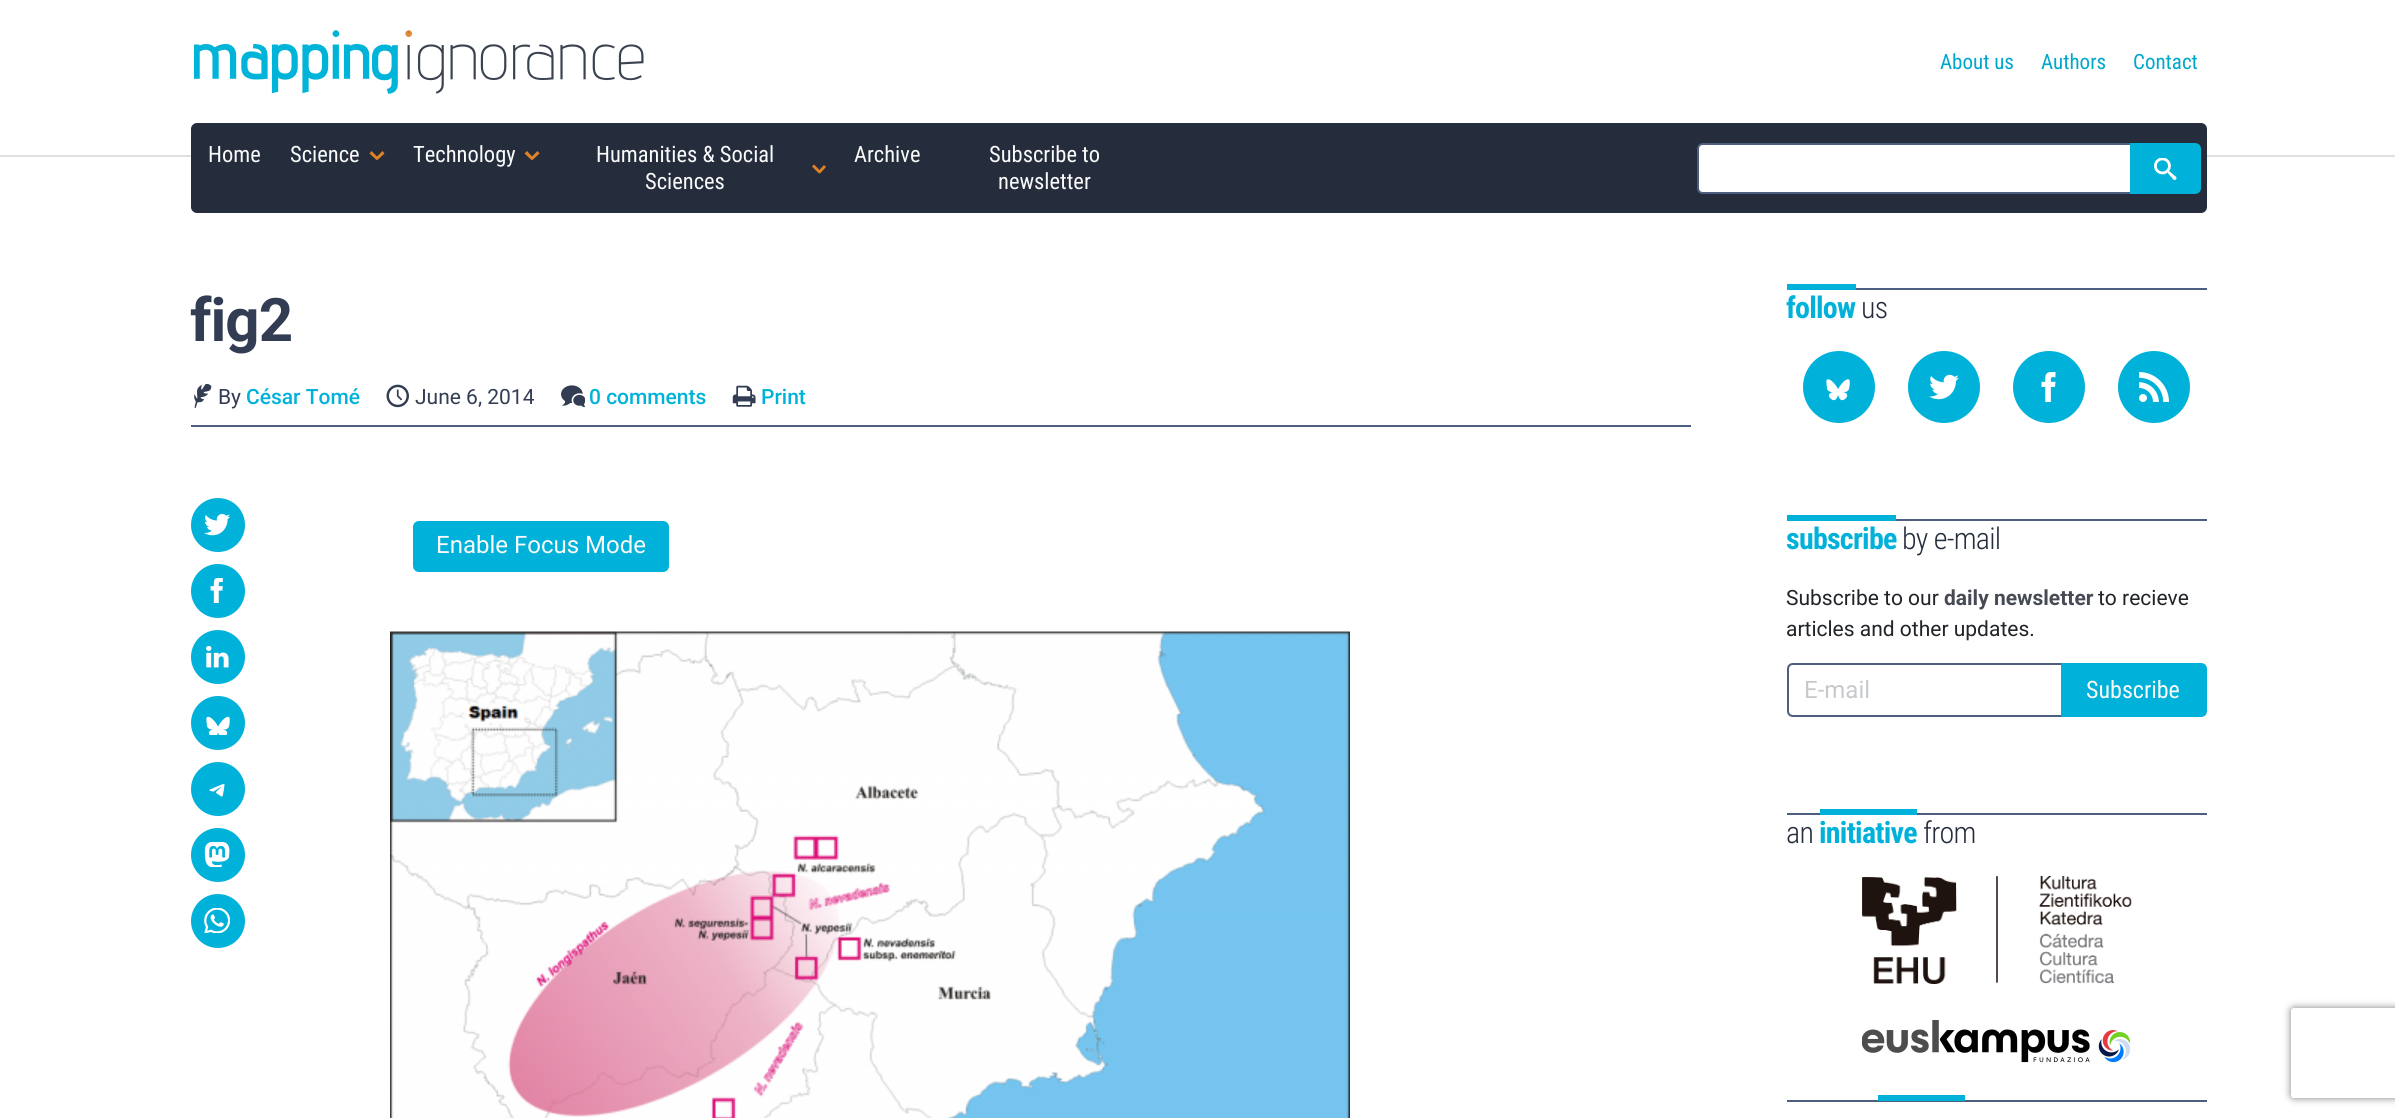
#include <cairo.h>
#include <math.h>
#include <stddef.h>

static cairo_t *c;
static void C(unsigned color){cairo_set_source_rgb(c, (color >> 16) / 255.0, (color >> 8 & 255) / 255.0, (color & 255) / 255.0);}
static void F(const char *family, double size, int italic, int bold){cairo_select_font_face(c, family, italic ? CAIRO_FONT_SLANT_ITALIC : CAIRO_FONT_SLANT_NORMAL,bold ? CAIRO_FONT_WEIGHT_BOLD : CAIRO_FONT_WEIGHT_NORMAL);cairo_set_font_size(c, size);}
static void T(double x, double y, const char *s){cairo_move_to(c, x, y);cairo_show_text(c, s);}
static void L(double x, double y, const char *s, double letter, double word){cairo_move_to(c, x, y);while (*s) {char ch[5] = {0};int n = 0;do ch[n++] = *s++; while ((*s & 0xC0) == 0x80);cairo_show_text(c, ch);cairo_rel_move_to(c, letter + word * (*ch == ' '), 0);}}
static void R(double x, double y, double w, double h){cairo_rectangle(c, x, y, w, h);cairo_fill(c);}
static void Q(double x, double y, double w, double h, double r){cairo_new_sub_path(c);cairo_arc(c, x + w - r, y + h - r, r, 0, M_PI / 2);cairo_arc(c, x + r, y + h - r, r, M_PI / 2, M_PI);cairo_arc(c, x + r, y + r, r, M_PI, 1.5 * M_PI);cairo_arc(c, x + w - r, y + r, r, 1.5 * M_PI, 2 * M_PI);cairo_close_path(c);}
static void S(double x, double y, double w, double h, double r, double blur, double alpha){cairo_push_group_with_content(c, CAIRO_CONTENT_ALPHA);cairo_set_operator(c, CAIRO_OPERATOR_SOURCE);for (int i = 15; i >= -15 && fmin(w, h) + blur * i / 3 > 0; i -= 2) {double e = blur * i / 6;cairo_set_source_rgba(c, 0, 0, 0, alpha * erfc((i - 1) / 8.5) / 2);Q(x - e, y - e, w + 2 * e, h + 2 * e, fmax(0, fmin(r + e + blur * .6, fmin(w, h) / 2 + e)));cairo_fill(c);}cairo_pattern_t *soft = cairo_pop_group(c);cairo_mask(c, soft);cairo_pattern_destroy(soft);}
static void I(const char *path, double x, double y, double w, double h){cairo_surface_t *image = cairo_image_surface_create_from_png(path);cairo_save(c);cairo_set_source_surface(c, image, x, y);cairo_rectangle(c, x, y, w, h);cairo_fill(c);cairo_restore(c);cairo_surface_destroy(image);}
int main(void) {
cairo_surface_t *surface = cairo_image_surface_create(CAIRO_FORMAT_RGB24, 2395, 1118);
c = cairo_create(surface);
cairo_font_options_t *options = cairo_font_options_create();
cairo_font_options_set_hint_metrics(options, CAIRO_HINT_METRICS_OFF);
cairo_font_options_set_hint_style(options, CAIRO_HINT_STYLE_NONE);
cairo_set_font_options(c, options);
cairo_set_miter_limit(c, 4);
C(0xffffff);
cairo_paint(c);
I("1.png",194,30,450,64);
F("Roboto Condensed",21,0,0);
C(0x00a7cc);
T(1940,69,"About us");
T(2041,69,"Authors");
T(2133,69,"Contact");
C(0xdddfe3);
R(0,155,2395,2);
C(0x252d3d);
Q(191,123,2016,90,6);
cairo_fill(c);
F("Roboto Condensed",22.5,0,0);
C(0xfafafa);
T(208,162,"Home");
T(290,162,"Science");
C(0xdf8226);
cairo_new_path(c);
cairo_move_to(c,375.5,158);
cairo_line_to(c,382.5,151);
cairo_line_to(c,384.5,153.5);
cairo_line_to(c,377.5,160);
cairo_close_path(c);
cairo_fill(c);
cairo_new_path(c);
cairo_move_to(c,369.5,153.5);
cairo_line_to(c,371.5,151);
cairo_line_to(c,378.5,158);
cairo_line_to(c,376.5,160);
cairo_close_path(c);
cairo_fill(c);
C(0xfafafa);
T(413,162,"Technology");
C(0xdf8226);
cairo_new_path(c);
cairo_move_to(c,530.5,158);
cairo_line_to(c,537.5,151);
cairo_line_to(c,539.5,153.5);
cairo_line_to(c,532.5,160);
cairo_close_path(c);
cairo_fill(c);
cairo_new_path(c);
cairo_move_to(c,524.5,153.5);
cairo_line_to(c,527,151);
cairo_line_to(c,533.5,158);
cairo_line_to(c,531.5,160);
cairo_close_path(c);
cairo_fill(c);
C(0xfafafa);
T(596,162,"Humanities & Social");
T(645,189,"Sciences");
C(0xdf8226);
cairo_new_path(c);
cairo_move_to(c,818,171.5);
cairo_line_to(c,824,165);
cairo_line_to(c,826,167);
cairo_line_to(c,820,173.5);
cairo_close_path(c);
cairo_fill(c);
cairo_new_path(c);
cairo_move_to(c,812,166.5);
cairo_line_to(c,814,164.5);
cairo_line_to(c,821,171.5);
cairo_line_to(c,819,173.5);
cairo_close_path(c);
cairo_fill(c);
C(0xfafafa);
T(854,162,"Archive");
T(989,162,"Subscribe to");
T(998,189,"newsletter");
C(0xffffff);
cairo_new_path(c);
cairo_move_to(c,1703,144);
cairo_line_to(c,2131,144);
cairo_line_to(c,2131,193);
cairo_line_to(c,1703,193);
cairo_curve_to(c,1700,193,1698,191,1698,188);
cairo_line_to(c,1698,149);
cairo_curve_to(c,1698,146,1700,144,1703,144);
cairo_close_path(c);
cairo_fill_preserve(c);
C(0x4d5e7f);
cairo_stroke(c);
C(0x00b1d9);
cairo_new_path(c);
cairo_move_to(c,2130,143);
cairo_line_to(c,2195,143);
cairo_curve_to(c,2198.5,143,2201,145.5,2201,149);
cairo_line_to(c,2201,188);
cairo_curve_to(c,2201,191.5,2198.5,194,2195,194);
cairo_line_to(c,2130,194);
cairo_close_path(c);
cairo_fill(c);
I("2.png",2154,158,23,22);
F("Roboto",60,0,1);
C(0x323d53);
L(190,341,"fig2",-1,0);
I("3.png",194,384,18,24);
F("Roboto",21,0,0);
T(218,404,"By");
F("Roboto Medium",21,0,0);
C(0x00b1d9);
T(246,404,"César Tomé");
I("4.png",386,384,23,24);
F("Roboto",21,0,0);
C(0x323d53);
T(415,404,"June 6, 2014");
I("5.png",561,385,24,23);
F("Roboto Medium",21,0,0);
C(0x00b1d9);
T(589,404,"0 comments");
I("6.png",732,385,24,22);
T(761,404,"Print");
C(0x4d5e7f);
R(191,425,1500,2);
C(0x00b1d9);
cairo_new_path(c);
cairo_arc(c,218,525,27,0,2 * M_PI);
cairo_fill(c);
I("7.png",204,514,26,22);
cairo_arc(c,218,591,27,0,2 * M_PI);
cairo_fill(c);
I("8.png",210,578,13,25);
cairo_arc(c,218,657,27,0,2 * M_PI);
cairo_fill(c);
I("9.png",206,645,23,23);
cairo_arc(c,218,723,27,0,2 * M_PI);
cairo_fill(c);
I("10.png",206,716,24,19);
cairo_arc(c,218,789,27,0,2 * M_PI);
cairo_fill(c);
I("11.png",209,784,16,13);
cairo_arc(c,218,855,27,0,2 * M_PI);
cairo_fill(c);
I("12.png",204,842,26,25);
cairo_arc(c,218,921,27,0,2 * M_PI);
cairo_fill(c);
I("13.png",204,908,26,25);
Q(413,521,256,51,6);
cairo_fill(c);
F("Roboto",24,0,0);
C(0xfafafa);
T(436,553,"Enable Focus Mode");
I("14.png",390,631,960,487);
C(0x4d5e7f);
R(1856,288,351,2);
F("Roboto Condensed",30,0,1);
C(0x00b1d9);
L(1786,318,"follow",-.75,0);
R(1787,284,69,6);
F("Roboto Condensed Light",30,0,0);
C(0x252d3d);
L(1861,318,"us",-.75,0);
C(0x00b1d9);
cairo_new_path(c);
cairo_arc(c,1839,387,36,0,2 * M_PI);
cairo_fill(c);
I("15.png",1826,379,24,22);
cairo_arc(c,1944,387,36,0,2 * M_PI);
cairo_fill(c);
I("16.png",1929,374,30,26);
cairo_arc(c,2049,387,36,0,2 * M_PI);
cairo_fill(c);
I("17.png",2041,372,15,30);
cairo_arc(c,2154,387,36,0,2 * M_PI);
cairo_fill(c);
I("18.png",2139,372,30,30);
C(0x4d5e7f);
R(1896,519,311,2);
F("Roboto Condensed",30,0,1);
C(0x00b1d9);
L(1786,549,"subscribe",-.75,0);
R(1787,515,109,6);
F("Roboto Condensed Light",30,0,0);
C(0x252d3d);
L(1902,549,"by e-mail",-.75,0);
F("Roboto",21,0,0);
C(0x202327);
T(1786,605,"Subscribe to our");
F("Roboto",21,0,1);
C(0x454a54);
T(1944,605,"daily newsletter");
F("Roboto",21,0,0);
C(0x202327);
T(2098,605,"to recieve");
T(1786,636,"articles and other updates.");
cairo_new_path(c);
cairo_move_to(c,1793,664);
cairo_line_to(c,2062,664);
cairo_line_to(c,2062,716);
cairo_line_to(c,1793,716);
cairo_curve_to(c,1790,716,1788,714,1788,711);
cairo_line_to(c,1788,669);
cairo_curve_to(c,1788,666,1790,664,1793,664);
cairo_close_path(c);
C(0x4d5e7f);
cairo_stroke(c);
F("Roboto",24,0,0);
C(0xc7c9cc);
T(1804,698,"E-mail");
C(0x00b1d9);
cairo_new_path(c);
cairo_move_to(c,2061,663);
cairo_line_to(c,2201,663);
cairo_curve_to(c,2204.5,663,2207,665.5,2207,669);
cairo_line_to(c,2207,711);
cairo_curve_to(c,2207,714.5,2204.5,717,2201,717);
cairo_line_to(c,2061,717);
cairo_close_path(c);
cairo_fill(c);
F("Roboto Condensed",24,0,0);
C(0xfafafa);
T(2086,698,"Subscribe");
C(0x4d5e7f);
R(1787,813,420,2);
F("Roboto Condensed Light",30,0,0);
C(0x252d3d);
L(1786,843,"an",-.75,0);
F("Roboto Condensed",30,0,1);
C(0x00b1d9);
L(1819,843,"initiative",-.75,0);
R(1820,809,97,6);
F("Roboto Condensed Light",30,0,0);
C(0x252d3d);
L(1923,843,"from",-.75,0);
I("19.png",1862,876,270,108);
I("20.png",1862,1020,268,43);
C(0x4d5e7f);
R(1787,1100,420,2);
C(0x00b1d9);
R(1878,1095,87,6);
cairo_save(c);
cairo_set_fill_rule(c,CAIRO_FILL_RULE_EVEN_ODD);
cairo_new_path(c);
cairo_move_to(c,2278,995);
cairo_line_to(c,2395,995);
cairo_line_to(c,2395,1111);
cairo_line_to(c,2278,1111);
cairo_close_path(c);
cairo_move_to(c,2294,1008);
cairo_line_to(c,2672,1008);
cairo_curve_to(c,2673.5,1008,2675,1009.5,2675,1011);
cairo_line_to(c,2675,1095);
cairo_curve_to(c,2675,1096.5,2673.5,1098,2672,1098);
cairo_line_to(c,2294,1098);
cairo_curve_to(c,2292.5,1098,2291,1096.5,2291,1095);
cairo_line_to(c,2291,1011);
cairo_curve_to(c,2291,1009.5,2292.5,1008,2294,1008);
cairo_close_path(c);
cairo_clip(c);
C(0x808080);
S(2291,1008,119,90,3,4,1);
cairo_restore(c);
cairo_surface_write_to_png(surface, "o.png");
cairo_font_options_destroy(options);
cairo_destroy(c);
cairo_surface_destroy(surface);
return 0;
}
